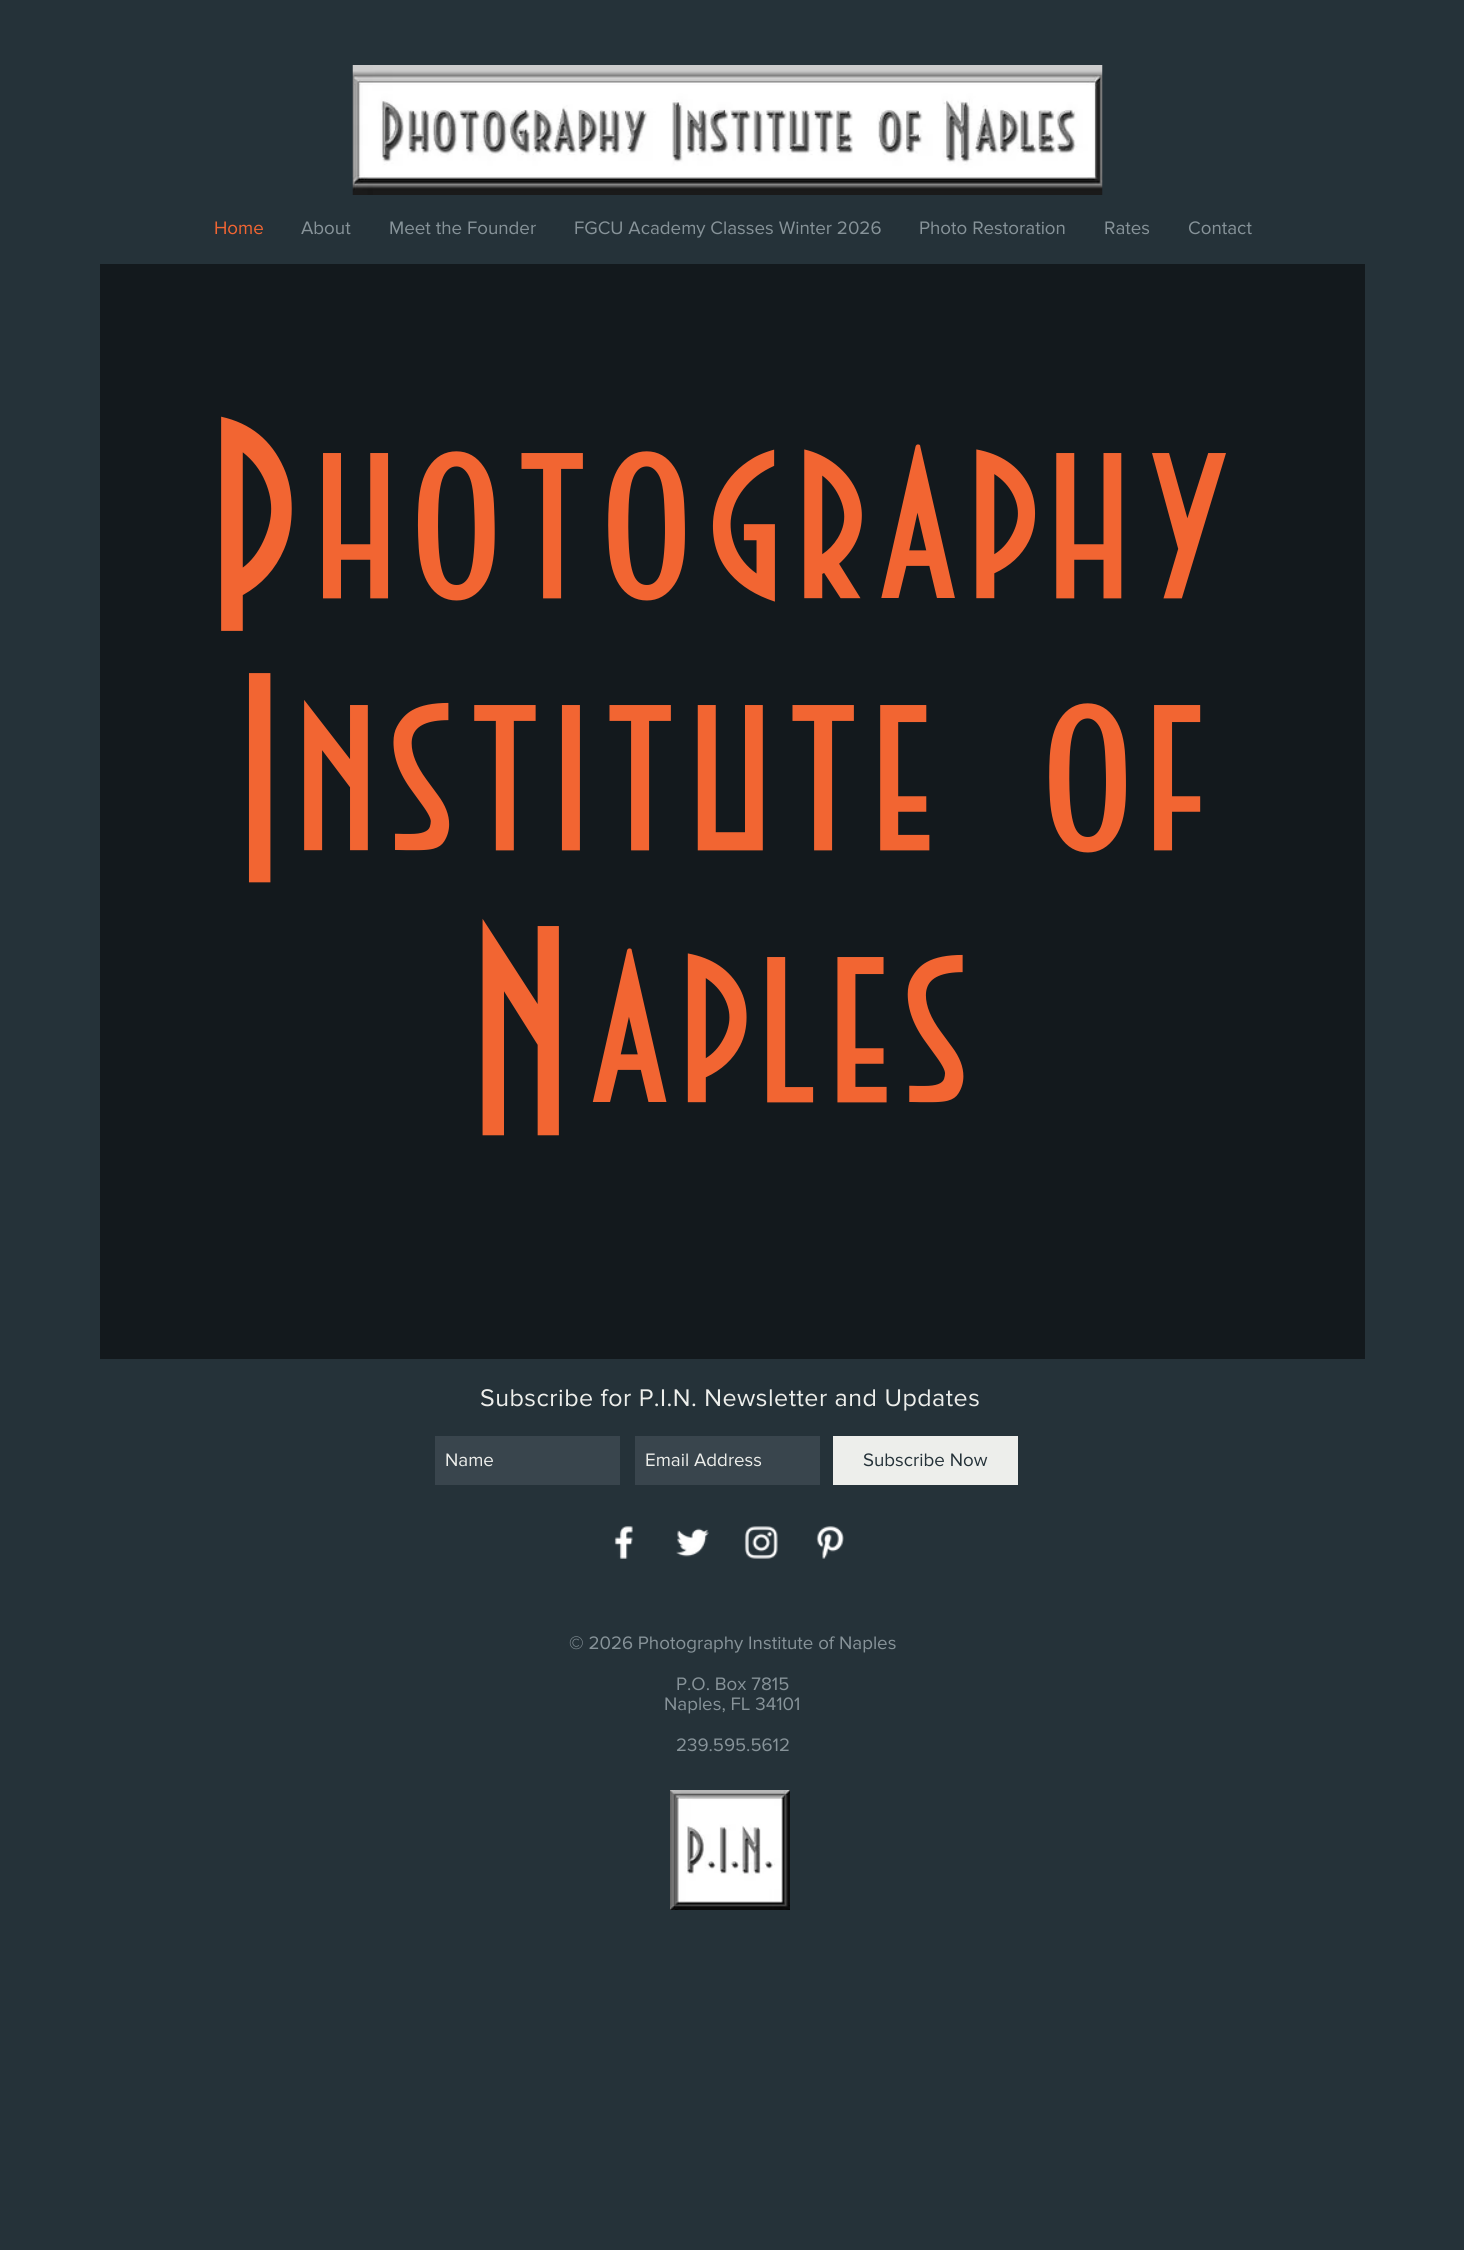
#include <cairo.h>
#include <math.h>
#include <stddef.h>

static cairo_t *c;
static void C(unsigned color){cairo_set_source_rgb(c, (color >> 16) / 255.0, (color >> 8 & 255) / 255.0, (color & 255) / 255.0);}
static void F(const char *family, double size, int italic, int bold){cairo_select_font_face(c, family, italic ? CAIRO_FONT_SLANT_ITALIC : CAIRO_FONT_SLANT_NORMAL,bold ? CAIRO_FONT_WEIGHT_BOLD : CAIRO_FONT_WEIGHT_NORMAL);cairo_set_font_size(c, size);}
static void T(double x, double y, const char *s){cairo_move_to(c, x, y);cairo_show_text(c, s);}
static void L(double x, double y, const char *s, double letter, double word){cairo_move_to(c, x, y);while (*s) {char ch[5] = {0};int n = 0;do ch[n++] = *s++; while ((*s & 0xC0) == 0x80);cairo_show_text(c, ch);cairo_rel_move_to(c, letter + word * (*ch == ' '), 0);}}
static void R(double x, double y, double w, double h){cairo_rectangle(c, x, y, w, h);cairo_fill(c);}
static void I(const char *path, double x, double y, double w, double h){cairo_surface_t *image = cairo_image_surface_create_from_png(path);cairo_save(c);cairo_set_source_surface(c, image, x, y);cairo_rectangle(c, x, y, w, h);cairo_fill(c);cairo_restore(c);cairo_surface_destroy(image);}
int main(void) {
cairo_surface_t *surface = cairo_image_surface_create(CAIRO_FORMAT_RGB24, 1464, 2250);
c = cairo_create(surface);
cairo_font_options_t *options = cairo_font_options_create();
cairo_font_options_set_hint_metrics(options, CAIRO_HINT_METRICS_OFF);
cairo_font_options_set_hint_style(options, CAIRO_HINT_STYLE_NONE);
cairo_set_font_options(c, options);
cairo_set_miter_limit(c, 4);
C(0x253239);
cairo_paint(c);
I("1.png",352,65,751,130);
F("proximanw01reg",18.75,0,0);
C(0xf26532);
T(214,234,"Home");
C(0x879399);
T(301,234,"About");
T(389,234,"Meet the Founder");
T(574,234,"FGCU Academy Classes Winter 2026");
T(919,234,"Photo Restoration");
T(1104,234,"Rates");
T(1188,234,"Contact");
C(0x13191d);
R(100,264,1265,1095);
F("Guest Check",191.25,0,0);
C(0xf26532);
T(220,598,"Photography");
T(244,850,"Institute of");
T(482,1102,"Naples");
F("proximanw01reg",25,0,0);
C(0xedeeeb);
L(480,1406,"Subscribe for P.I.N. Newsletter and Updates",.5,0);
C(0x39454d);
R(435,1436,185,49);
F("proximanw01reg",18.75,0,0);
C(0xedeeeb);
T(445,1466,"Name");
C(0x39454d);
R(635,1436,185,49);
C(0xedeeeb);
T(645,1466,"Email Address");
R(833,1436,185,49);
C(0x253239);
T(863,1466,"Subscribe Now");
I("2.png",614,1526,19,33);
I("3.png",676,1528,33,29);
I("4.png",744,1526,34,33);
I("5.png",816,1526,28,33);
C(0x879399);
T(569,1649,"© 2026 Photography Institute of Naples");
T(676,1690,"P.O. Box 7815");
T(664,1710,"Naples, FL 34101");
T(676,1751,"239.595.5612");
I("6.png",670,1790,120,120);
cairo_surface_write_to_png(surface, "o.png");
cairo_font_options_destroy(options);
cairo_destroy(c);
cairo_surface_destroy(surface);
return 0;
}
